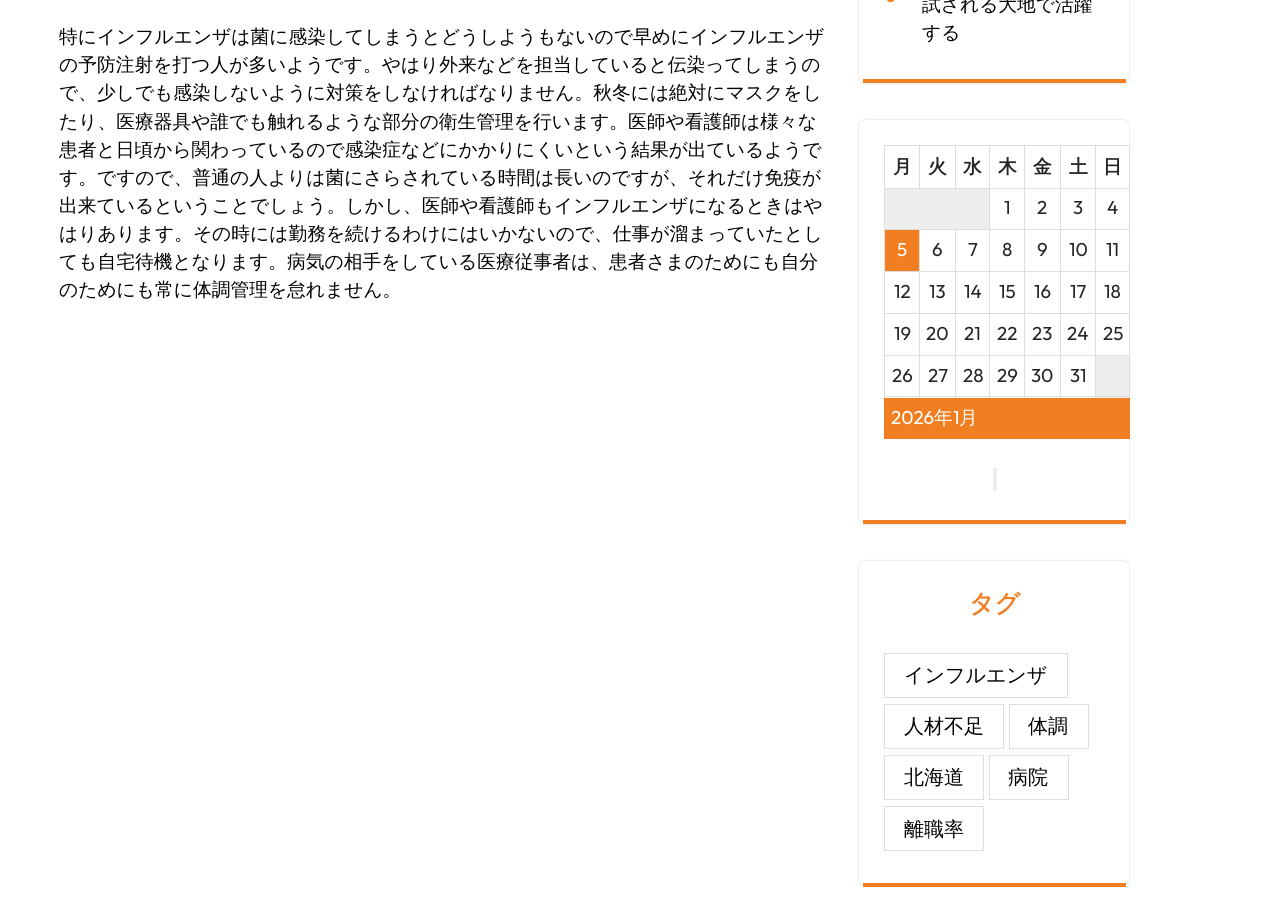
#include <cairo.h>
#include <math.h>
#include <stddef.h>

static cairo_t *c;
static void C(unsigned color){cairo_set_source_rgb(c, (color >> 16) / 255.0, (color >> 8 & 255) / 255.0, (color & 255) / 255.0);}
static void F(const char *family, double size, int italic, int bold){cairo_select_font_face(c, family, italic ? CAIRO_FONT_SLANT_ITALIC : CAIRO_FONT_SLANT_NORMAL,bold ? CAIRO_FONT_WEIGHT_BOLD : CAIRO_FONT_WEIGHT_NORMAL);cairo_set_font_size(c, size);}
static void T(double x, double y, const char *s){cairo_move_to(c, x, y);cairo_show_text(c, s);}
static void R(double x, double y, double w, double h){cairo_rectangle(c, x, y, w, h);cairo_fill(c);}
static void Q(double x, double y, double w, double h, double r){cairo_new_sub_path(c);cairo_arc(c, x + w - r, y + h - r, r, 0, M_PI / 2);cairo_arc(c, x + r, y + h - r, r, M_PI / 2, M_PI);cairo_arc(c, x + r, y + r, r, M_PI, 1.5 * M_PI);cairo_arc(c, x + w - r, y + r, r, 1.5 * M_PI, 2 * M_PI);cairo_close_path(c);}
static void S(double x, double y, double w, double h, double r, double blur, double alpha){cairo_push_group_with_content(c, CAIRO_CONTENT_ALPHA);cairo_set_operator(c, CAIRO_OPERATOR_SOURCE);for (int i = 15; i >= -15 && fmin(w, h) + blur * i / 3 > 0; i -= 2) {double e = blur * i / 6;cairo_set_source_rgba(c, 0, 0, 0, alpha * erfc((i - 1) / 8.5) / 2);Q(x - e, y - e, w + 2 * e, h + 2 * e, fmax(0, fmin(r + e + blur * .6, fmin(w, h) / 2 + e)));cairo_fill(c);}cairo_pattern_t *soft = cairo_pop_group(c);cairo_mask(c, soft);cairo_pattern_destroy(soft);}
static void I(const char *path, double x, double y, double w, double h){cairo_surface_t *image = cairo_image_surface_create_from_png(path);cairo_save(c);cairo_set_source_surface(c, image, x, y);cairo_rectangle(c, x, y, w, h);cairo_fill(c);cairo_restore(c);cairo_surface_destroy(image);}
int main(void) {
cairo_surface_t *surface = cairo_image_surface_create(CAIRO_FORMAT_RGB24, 1288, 923);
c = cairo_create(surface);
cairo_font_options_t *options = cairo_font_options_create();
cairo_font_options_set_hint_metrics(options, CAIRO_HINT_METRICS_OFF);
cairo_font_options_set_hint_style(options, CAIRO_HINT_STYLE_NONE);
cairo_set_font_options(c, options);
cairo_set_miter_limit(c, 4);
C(0xffffff);
cairo_paint(c);
F("WenQuanYi Zen Hei Medium",18.75,0,0);
C(0x000000);
T(59,43,"特にインフルエンザは菌に感染してしまうとどうしようもないので早めにインフルエンザ");
T(59,71,"の予防注射を打つ人が多いようです。やはり外来などを担当していると伝染ってしまうの");
T(59,99,"で、少しでも感染しないように対策をしなければなりません。秋冬には絶対にマスクをし");
T(59,128,"たり、医療器具や誰でも触れるような部分の衛生管理を行います。医師や看護師は様々な");
T(59,156,"患者と日頃から関わっているので感染症などにかかりにくいという結果が出ているようで");
T(59,184,"す。ですので、普通の人よりは菌にさらされている時間は長いのですが、それだけ免疫が");
T(59,212,"出来ているということでしょう。しかし、医師や看護師もインフルエンザになるときはや");
T(59,240,"はりあります。その時には勤務を続けるわけにはいかないので、仕事が溜まっていたとし");
T(59,268,"ても自宅待機となります。病気の相手をしている医療従事者は、患者さまのためにも自分");
T(59,296,"のためにも常に体調管理を怠れません。");
C(0xcfcfcf);
S(859,-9,270,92,6,1,1);
C(0xffffff);
Q(859,-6,270,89,6);
cairo_fill(c);
C(0xf17e21);
R(863,79,263,4);
I("1.png",887,0,8,3);
C(0x000000);
T(922,11,"試される大地で活躍");
T(922,39,"する");
C(0xcfcfcf);
S(859,120,270,404,6,1,1);
C(0xffffff);
Q(859,120,270,404,6);
cairo_fill(c);
C(0xf17e21);
R(863,520,263,4);
C(0xdddddd);
R(1095,145,35,1);
R(1095,188,35,1);
R(1095,229,35,1);
R(1095,271,35,1);
R(1095,313,35,1);
R(1095,355,35,1);
C(0xeeeeee);
R(1096,356,33,42);
C(0xdddddd);
R(1129,355,1,43);
R(1095,396,35,1);
R(1095,355,1,43);
R(1060,355,36,1);
R(1095,313,1,43);
R(1060,313,36,1);
R(1095,271,1,43);
R(1060,271,36,1);
R(1095,229,1,44);
R(1060,229,36,1);
R(1095,188,1,42);
R(1060,188,36,1);
R(1095,145,1,44);
R(1060,145,36,1);
R(1060,396,36,1);
R(1060,355,1,43);
R(1024,355,37,1);
R(1060,313,1,43);
R(1024,313,37,1);
R(1060,271,1,43);
R(1024,271,37,1);
R(1060,229,1,44);
R(1024,229,37,1);
R(1060,188,1,42);
R(1024,188,37,1);
R(1060,145,1,44);
R(1024,145,37,1);
R(1024,396,37,1);
R(1024,355,1,43);
R(989,355,36,1);
R(1024,313,1,43);
R(989,313,36,1);
R(1024,271,1,43);
R(989,271,36,1);
R(1024,229,1,44);
R(989,229,36,1);
R(1024,188,1,42);
R(989,188,36,1);
R(1024,145,1,44);
R(989,145,36,1);
R(989,396,36,1);
R(989,355,1,43);
R(955,355,35,1);
R(989,313,1,43);
R(955,313,35,1);
R(989,271,1,43);
R(955,271,35,1);
R(989,229,1,44);
R(955,229,35,1);
R(989,188,1,42);
R(884,188,106,1);
R(989,145,1,44);
R(955,145,35,1);
R(955,145,1,44);
R(919,145,37,1);
R(919,145,1,44);
R(884,145,36,1);
R(955,396,35,1);
R(955,355,1,43);
R(919,355,37,1);
R(955,313,1,43);
R(919,313,37,1);
R(955,271,1,43);
R(919,271,37,1);
R(955,229,1,44);
R(919,229,37,1);
R(919,396,37,1);
R(919,355,1,43);
R(884,355,36,1);
R(919,313,1,43);
R(884,313,36,1);
R(919,271,1,43);
R(884,271,36,1);
R(919,229,1,44);
R(884,229,36,1);
R(884,396,36,1);
R(884,355,1,43);
R(884,313,1,43);
R(884,271,1,43);
R(884,229,1,44);
R(884,188,1,42);
R(884,145,1,44);
F("WenQuanYi Zen Hei",18.75,0,1);
C(0x252525);
T(893,173,"月");
T(928,173,"火");
T(963,173,"水");
T(998,173,"木");
T(1033,173,"金");
T(1069,173,"土");
C(0xdddddd);
R(1129,313,1,43);
R(1129,271,1,43);
R(1129,229,1,44);
R(1129,188,1,42);
R(1129,145,1,44);
C(0x252525);
T(1103,173,"日");
C(0xeeeeee);
R(885,189,104,40);
F("Outfit Thin",18.75,0,0);
C(0x252525);
T(1004,214,"1");
T(1037,214,"2");
T(1073,214,"3");
T(1107,214,"4");
C(0xf17e21);
R(885,230,34,41);
C(0xffffff);
T(897,256,"5");
C(0x252525);
T(932,256,"6");
T(968,256,"7");
T(1002,256,"8");
T(1037,256,"9");
T(1069,256,"10");
T(1106,256,"11");
T(894,298,"12");
T(929,298,"13");
T(964,298,"14");
T(999,298,"15");
T(1034,298,"16");
T(1070,298,"17");
T(1104,298,"18");
T(894,340,"19");
T(926,340,"20");
T(964,340,"21");
T(997,340,"22");
T(1032,340,"23");
T(1067,340,"24");
T(1103,340,"25");
T(892,382,"26");
T(928,382,"27");
T(963,382,"28");
T(997,382,"29");
T(1031,382,"30");
T(1070,382,"31");
C(0xf17e21);
R(884,398,246,41);
C(0xffffff);
T(891,424,"2026");
F("WenQuanYi Zen Hei Medium",18.75,0,0);
T(934,424,"年");
F("Outfit Thin",18.75,0,0);
T(953,424,"1");
F("WenQuanYi Zen Hei Medium",18.75,0,0);
T(959,424,"月");
C(0xeeeeee);
R(993,468,4,23);
C(0xcfcfcf);
S(859,561,270,325,6,1,1);
C(0xffffff);
Q(859,561,270,325,6);
cairo_fill(c);
C(0xf17e21);
R(863,883,263,4);
F("WenQuanYi Zen Hei",25,0,1);
T(969,612,"タグ");
cairo_rectangle(c,884.5,653.5,183,44);
C(0xdddddd);
cairo_set_line_width(c,1);
cairo_stroke(c);
F("WenQuanYi Zen Hei Medium",20,0,0);
C(0x000000);
T(904,682,"インフルエンザ");
cairo_rectangle(c,884.5,704.5,119,44);
C(0xdddddd);
cairo_stroke(c);
C(0x000000);
T(904,733,"人材不足");
cairo_rectangle(c,1009.5,704.5,79,44);
C(0xdddddd);
cairo_stroke(c);
C(0x000000);
T(1028,733,"体調");
cairo_rectangle(c,884.5,755.5,99,44);
C(0xdddddd);
cairo_stroke(c);
C(0x000000);
T(904,784,"北海道");
cairo_rectangle(c,989.5,755.5,79,44);
C(0xdddddd);
cairo_stroke(c);
C(0x000000);
T(1008,784,"病院");
cairo_rectangle(c,884.5,806.5,99,44);
C(0xdddddd);
cairo_stroke(c);
C(0x000000);
T(904,836,"離職率");
cairo_surface_write_to_png(surface, "o.png");
cairo_font_options_destroy(options);
cairo_destroy(c);
cairo_surface_destroy(surface);
return 0;
}
